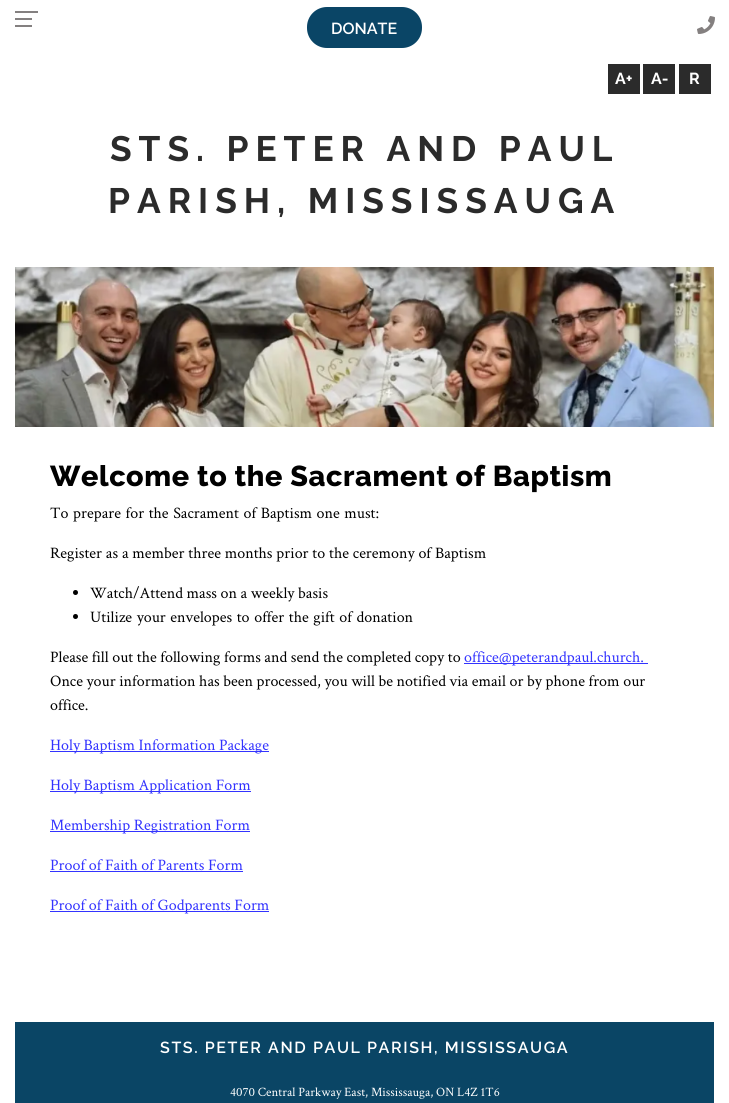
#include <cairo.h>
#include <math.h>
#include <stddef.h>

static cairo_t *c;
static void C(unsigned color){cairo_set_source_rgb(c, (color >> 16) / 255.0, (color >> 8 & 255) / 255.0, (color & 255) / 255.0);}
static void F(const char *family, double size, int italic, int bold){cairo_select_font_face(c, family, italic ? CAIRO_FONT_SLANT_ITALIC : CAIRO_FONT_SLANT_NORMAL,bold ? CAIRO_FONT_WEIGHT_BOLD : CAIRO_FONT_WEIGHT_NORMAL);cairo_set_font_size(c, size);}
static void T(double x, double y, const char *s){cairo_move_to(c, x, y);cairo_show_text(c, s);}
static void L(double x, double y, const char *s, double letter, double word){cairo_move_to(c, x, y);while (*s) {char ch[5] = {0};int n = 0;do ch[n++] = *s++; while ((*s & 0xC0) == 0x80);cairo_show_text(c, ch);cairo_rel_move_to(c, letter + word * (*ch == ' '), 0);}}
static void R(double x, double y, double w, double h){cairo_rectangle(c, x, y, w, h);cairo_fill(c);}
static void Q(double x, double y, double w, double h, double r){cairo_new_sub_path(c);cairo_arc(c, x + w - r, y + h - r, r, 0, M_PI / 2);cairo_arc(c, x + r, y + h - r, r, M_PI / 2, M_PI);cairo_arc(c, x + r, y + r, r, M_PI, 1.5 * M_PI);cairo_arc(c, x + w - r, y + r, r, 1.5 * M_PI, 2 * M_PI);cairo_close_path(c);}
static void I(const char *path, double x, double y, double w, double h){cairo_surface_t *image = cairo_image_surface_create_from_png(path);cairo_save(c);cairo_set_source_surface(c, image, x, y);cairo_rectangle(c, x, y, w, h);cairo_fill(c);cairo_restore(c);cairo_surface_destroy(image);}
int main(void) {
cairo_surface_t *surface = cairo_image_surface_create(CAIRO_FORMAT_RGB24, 729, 1103);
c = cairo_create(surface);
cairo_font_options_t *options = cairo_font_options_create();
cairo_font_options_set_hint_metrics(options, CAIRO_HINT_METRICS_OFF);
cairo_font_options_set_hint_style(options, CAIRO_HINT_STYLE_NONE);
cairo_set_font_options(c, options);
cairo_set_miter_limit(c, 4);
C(0xffffff);
cairo_paint(c);
C(0x848080);
R(15,18,17,2);
R(15,11,23,2);
R(15,25,17,2);
C(0x0a4566);
Q(307,7,115,41,20);
cairo_fill(c);
F("Raleway SemiBold",16,0,0);
C(0xffffff);
T(331,34,"DONATE");
I("1.png",697,16,18,18);
C(0x2b2b2b);
R(608,64,32,30);
F("Raleway",16,0,1);
C(0xffffff);
T(615,84,"A+");
C(0x2b2b2b);
R(643,64,32,30);
C(0xffffff);
T(651,84,"A-");
C(0x2b2b2b);
R(679,64,32,30);
C(0xffffff);
T(689,84,"R");
F("Raleway",35.25,0,1);
C(0x2b2b2b);
L(110,161,"STS. PETER AND PAUL",7,0);
L(108,213,"PARISH, MISSISSAUGA",7,0);
I("2.png",15,267,699,160);
F("Raleway ExtraBold",28.75,0,0);
C(0x000000);
L(50,486,"Welcome to the Sacrament of Baptism",.6,0);
F("Crimson Text",16,0,0);
L(50,518,"To prepare for the Sacrament of Baptism one must:",0,1);
L(50,558,"Register as a member three months prior to the ceremony of Baptism",0,.25);
cairo_new_path(c);
cairo_arc(c,75.5,592.5,2.5,0,2 * M_PI);
cairo_fill(c);
T(90,598,"Watch/Attend mass on a weekly basis");
cairo_new_path(c);
cairo_arc(c,75.5,616.5,2.5,0,2 * M_PI);
cairo_fill(c);
L(90,622,"Utilize your envelopes to offer the gift of donation",0,1);
T(50,662,"Please fill out the following forms and send the completed copy to");
C(0x3333ff);
R(464,663,184,1);
T(464,662,"office@peterandpaul.church.");
C(0x000000);
T(50,686,"Once your information has been processed, you will be notified via email or by phone from our");
T(50,710,"office.");
C(0x3333ff);
R(50,751,219,1);
T(50,750,"Holy Baptism Information Package");
R(50,791,201,1);
T(50,790,"Holy Baptism Application Form");
R(50,831,200,1);
T(50,830,"Membership Registration Form");
T(50,870,"Proof of Faith of Parents Form");
R(50,871,193,1);
R(50,911,219,1);
T(50,910,"Proof of Faith of Godparents Form");
C(0x0a4565);
R(15,1022,699,81);
F("Raleway SemiBold",16,0,0);
C(0xffffff);
L(160,1053,"STS. PETER AND PAUL PARISH, MISSISSAUGA",1.6,0);
F("Crimson Text",12.8,0,0);
T(230,1096,"4070 Central Parkway East, Mississauga, ON L4Z 1T6");
cairo_surface_write_to_png(surface, "o.png");
cairo_font_options_destroy(options);
cairo_destroy(c);
cairo_surface_destroy(surface);
return 0;
}
